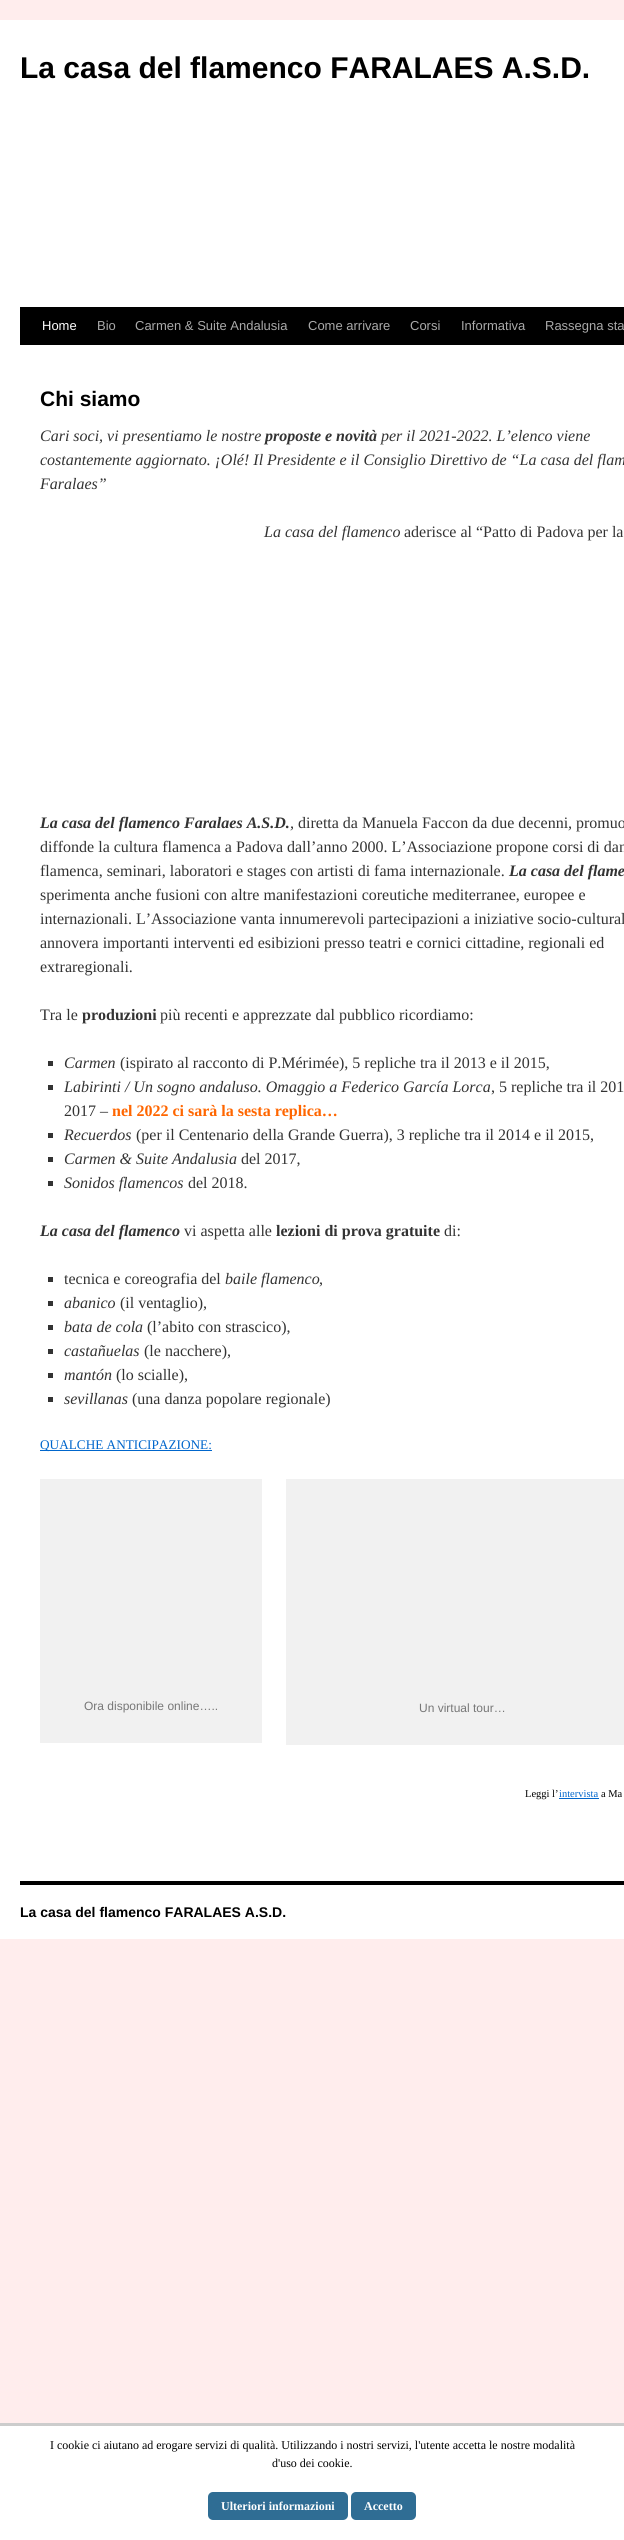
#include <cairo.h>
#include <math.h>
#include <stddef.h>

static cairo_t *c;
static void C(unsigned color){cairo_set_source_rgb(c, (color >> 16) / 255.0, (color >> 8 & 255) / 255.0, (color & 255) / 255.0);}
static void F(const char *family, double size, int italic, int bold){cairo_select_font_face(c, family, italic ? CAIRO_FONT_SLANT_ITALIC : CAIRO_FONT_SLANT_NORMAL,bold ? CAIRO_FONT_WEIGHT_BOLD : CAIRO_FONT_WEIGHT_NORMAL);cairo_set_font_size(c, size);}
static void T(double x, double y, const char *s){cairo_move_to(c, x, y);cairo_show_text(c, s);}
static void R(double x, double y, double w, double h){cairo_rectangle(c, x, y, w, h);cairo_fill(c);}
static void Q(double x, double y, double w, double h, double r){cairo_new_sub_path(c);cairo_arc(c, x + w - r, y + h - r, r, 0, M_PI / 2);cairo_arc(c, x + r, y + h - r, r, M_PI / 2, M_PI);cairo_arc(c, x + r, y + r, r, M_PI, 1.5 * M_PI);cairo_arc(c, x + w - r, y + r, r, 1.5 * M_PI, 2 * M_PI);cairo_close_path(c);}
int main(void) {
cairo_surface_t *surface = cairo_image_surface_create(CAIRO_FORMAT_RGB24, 624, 2540);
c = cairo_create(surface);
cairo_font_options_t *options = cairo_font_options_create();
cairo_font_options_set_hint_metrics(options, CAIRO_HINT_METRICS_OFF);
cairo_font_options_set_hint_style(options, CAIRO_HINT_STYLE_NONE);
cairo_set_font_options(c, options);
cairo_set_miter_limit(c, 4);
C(0xffeded);
cairo_paint(c);
C(0xffffff);
R(0,20,624,1919);
F("Liberation Sans",30,0,1);
C(0x000000);
T(20,78,"La casa del flamenco FARALAES A.S.D.");
R(20,307,604,38);
F("Liberation Sans",13,0,0);
C(0xffffff);
T(42,330,"Home");
C(0xaaaaaa);
T(97,330,"Bio");
T(135,330,"Carmen & Suite Andalusia");
T(308,330,"Come arrivare");
T(410,330,"Corsi");
T(461,330,"Informativa");
T(545,330,"Rassegna sta");
F("Liberation Sans",21,0,1);
C(0x000000);
T(40,406,"Chi siamo");
F("Liberation Serif",16,1,0);
C(0x333333);
T(40,441,"Cari soci, vi presentiamo le nostre");
F("Liberation Serif",16,1,1);
T(265,441,"proposte e novità");
F("Liberation Serif",16,1,0);
T(381,441,"per il 2021-2022. L’elenco viene");
T(40,465,"costantemente aggiornato. ¡Olé! Il Presidente e il Consiglio Direttivo de “La casa del flam");
T(40,489,"Faralaes”");
T(264,537,"La casa del flamenco");
F("Liberation Serif",16,0,0);
T(404,537,"aderisce al “Patto di Padova per la");
F("Liberation Serif",16,1,1);
T(40,828,"La casa del flamenco Faralaes A.S.D.");
F("Liberation Serif",16,1,0);
T(290,828,",");
F("Liberation Serif",16,0,0);
T(298,828,"diretta da Manuela Faccon da due decenni");
F("Liberation Serif",16,1,0);
T(568,828,",");
F("Liberation Serif",16,0,0);
T(576,828,"promuo");
T(40,852,"diffonde la cultura flamenca a Padova dall’anno 2000. L’Associazione propone corsi di dan");
T(40,876,"flamenca, seminari, laboratori e stages con artisti di fama internazionale.");
F("Liberation Serif",16,1,1);
T(509,876,"La casa del flame");
F("Liberation Serif",16,0,0);
T(40,900,"sperimenta anche fusioni con altre manifestazioni coreutiche mediterranee, europee e");
T(40,924,"internazionali. L’Associazione vanta innumerevoli partecipazioni a iniziative socio-cultural");
T(40,948,"annovera importanti interventi ed esibizioni presso teatri e cornici cittadine, regionali ed");
T(40,972,"extraregionali.");
T(40,1020,"Tra le");
F("Liberation Serif",16,0,1);
T(82,1020,"produzioni");
F("Liberation Serif",16,0,0);
T(160,1020,"più recenti e apprezzate dal pubblico ricordiamo:");
R(48,1061,5,5);
F("Liberation Serif",16,1,0);
T(64,1068,"Carmen");
F("Liberation Serif",16,0,0);
T(120,1068,"(ispirato al racconto di P.Mérimée), 5 repliche tra il 2013 e il 2015,");
R(48,1085,5,5);
F("Liberation Serif",16,1,0);
T(64,1092,"Labirinti / Un sogno andaluso. Omaggio a Federico García Lorca");
F("Liberation Serif",16,0,0);
T(491,1092,", 5 repliche tra il 201");
T(64,1116,"2017 –");
F("Liberation Serif",16,0,1);
C(0xff6600);
T(112,1116,"nel 2022 ci sarà la sesta replica…");
C(0x333333);
R(48,1133,5,5);
F("Liberation Serif",16,1,0);
T(64,1140,"Recuerdos");
F("Liberation Serif",16,0,0);
T(136,1140,"(per il Centenario della Grande Guerra), 3 repliche tra il 2014 e il 2015,");
R(48,1157,5,5);
F("Liberation Serif",16,1,0);
T(64,1164,"Carmen & Suite Andalusia");
F("Liberation Serif",16,0,0);
T(241,1164,"del 2017,");
R(48,1181,5,5);
F("Liberation Serif",16,1,0);
T(64,1188,"Sonidos flamencos");
F("Liberation Serif",16,0,0);
T(188,1188,"del 2018.");
F("Liberation Serif",16,1,1);
T(40,1236,"La casa del flamenco");
F("Liberation Serif",16,0,0);
T(184,1236,"vi aspetta alle");
F("Liberation Serif",16,0,1);
T(276,1236,"lezioni di prova gratuite");
F("Liberation Serif",16,0,0);
T(444,1236,"di:");
R(48,1277,5,5);
T(64,1284,"tecnica e coreografia del");
F("Liberation Serif",16,1,0);
T(225,1284,"baile flamenco");
F("Liberation Serif",16,0,0);
T(319,1284,",");
R(48,1301,5,5);
F("Liberation Serif",16,1,0);
T(64,1308,"abanico");
F("Liberation Serif",16,0,0);
T(120,1308,"(il ventaglio),");
R(48,1325,5,5);
F("Liberation Serif",16,1,0);
T(64,1332,"bata de cola");
F("Liberation Serif",16,0,0);
T(147,1332,"(l’abito con strascico),");
R(48,1349,5,5);
F("Liberation Serif",16,1,0);
T(64,1356,"castañuelas");
F("Liberation Serif",16,0,0);
T(144,1356,"(le nacchere),");
R(48,1373,5,5);
F("Liberation Serif",16,1,0);
T(64,1380,"mantón");
F("Liberation Serif",16,0,0);
T(116,1380,"(lo scialle),");
R(48,1397,5,5);
F("Liberation Serif",16,1,0);
T(64,1404,"sevillanas");
F("Liberation Serif",16,0,0);
T(132,1404,"(una danza popolare regionale)");
C(0x0066cc);
R(40,1450,172,1);
F("Liberation Serif",13.25,0,0);
T(40,1449,"QUALCHE ANTICIPAZIONE:");
C(0xf1f1f1);
R(40,1479,222,264);
F("Liberation Sans",12,0,0);
C(0x777777);
T(84,1710,"Ora disponibile online…..");
C(0xf1f1f1);
R(286,1479,338,266);
C(0x777777);
T(419,1712,"Un virtual tour…");
F("Liberation Serif",10.5,0,0);
C(0x000000);
T(525,1797,"Leggi l’");
C(0x0066cc);
T(559,1797,"intervista");
R(559,1798,40,1);
C(0x000000);
T(601,1797,"a Ma");
R(20,1881,604,4);
F("Liberation Sans",14,0,1);
T(20,1917,"La casa del flamenco FARALAES A.S.D.");
C(0xffffff);
R(0,2426,624,114);
C(0xcccccc);
R(0,2423,624,3);
F("Liberation Serif",12,0,0);
C(0x000000);
T(50,2449,"I cookie ci aiutano ad erogare servizi di qualità. Utilizzando i nostri servizi, l'utente accetta le nostre modalità");
T(272,2467,"d'uso dei cookie.");
C(0x2f6d94);
Q(208,2492,140,28,5);
cairo_fill(c);
F("Liberation Serif",12,0,1);
C(0xffffff);
T(221,2510,"Ulteriori informazioni");
C(0x2f6d94);
Q(351,2492,65,28,5);
cairo_fill(c);
C(0xffffff);
T(364,2510,"Accetto");
cairo_surface_write_to_png(surface, "o.png");
cairo_font_options_destroy(options);
cairo_destroy(c);
cairo_surface_destroy(surface);
return 0;
}
